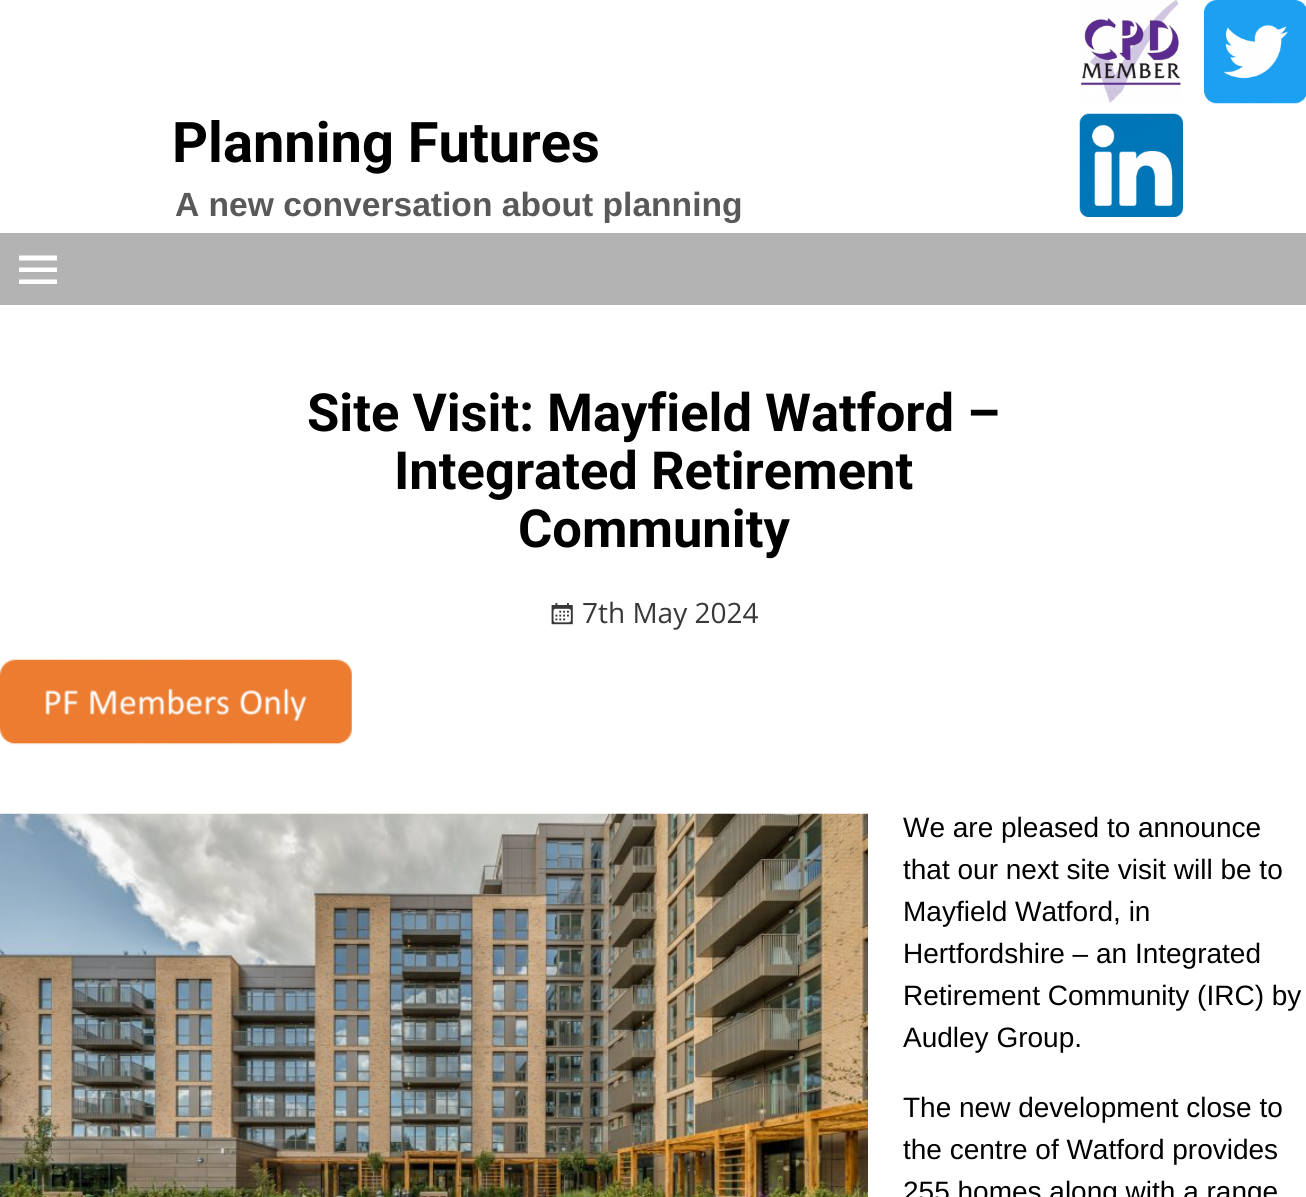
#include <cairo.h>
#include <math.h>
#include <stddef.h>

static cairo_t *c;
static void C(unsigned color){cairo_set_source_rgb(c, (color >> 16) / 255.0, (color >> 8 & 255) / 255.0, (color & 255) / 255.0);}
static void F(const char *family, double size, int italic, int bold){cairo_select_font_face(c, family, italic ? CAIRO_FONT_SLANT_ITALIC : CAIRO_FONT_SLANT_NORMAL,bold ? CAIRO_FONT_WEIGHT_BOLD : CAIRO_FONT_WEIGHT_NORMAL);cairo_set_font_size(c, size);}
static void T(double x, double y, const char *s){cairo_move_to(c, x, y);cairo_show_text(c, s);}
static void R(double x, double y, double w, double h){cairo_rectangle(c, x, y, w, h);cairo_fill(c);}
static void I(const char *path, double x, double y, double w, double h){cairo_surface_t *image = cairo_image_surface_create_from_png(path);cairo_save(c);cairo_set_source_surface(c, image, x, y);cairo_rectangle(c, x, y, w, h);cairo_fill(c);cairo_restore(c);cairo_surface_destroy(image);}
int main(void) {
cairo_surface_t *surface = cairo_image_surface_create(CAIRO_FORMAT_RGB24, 1306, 1197);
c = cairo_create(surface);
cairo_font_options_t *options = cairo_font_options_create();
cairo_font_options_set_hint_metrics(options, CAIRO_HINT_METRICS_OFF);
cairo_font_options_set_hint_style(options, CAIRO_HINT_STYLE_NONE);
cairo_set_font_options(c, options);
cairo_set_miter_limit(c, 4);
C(0xffffff);
cairo_paint(c);
F("Roboto",56,0,1);
C(0x000000);
T(172,162,"Planning Futures");
F("Liberation Sans",33.6,0,1);
C(0x595959);
T(175,216,"A new conversation about planning");
I("1.png",1080,0,101,103);
I("2.png",1204,0,102,104);
I("3.png",1079,113,104,104);
C(0xb3b3b3);
R(0,233,1306,72);
C(0xffffff);
cairo_new_path(c);
cairo_move_to(c,19,284);
cairo_line_to(c,19,279.5);
cairo_line_to(c,57,279.5);
cairo_line_to(c,57,284);
cairo_close_path(c);
cairo_move_to(c,19,255.5);
cairo_line_to(c,57,255.5);
cairo_line_to(c,57,260.5);
cairo_line_to(c,19,260.5);
cairo_close_path(c);
cairo_move_to(c,19,272);
cairo_line_to(c,19,267.5);
cairo_line_to(c,57,267.5);
cairo_line_to(c,57,272);
cairo_close_path(c);
cairo_fill(c);
F("Roboto",52.5,0,1);
C(0x000000);
T(307,431,"Site Visit: Mayfield Watford –");
T(394,489,"Integrated Retirement");
T(518,547,"Community");
I("4.png",551,603,22,22);
F("Open Sans",28,0,0);
C(0x383838);
T(582,623,"7th May 2024");
I("5.png",0,659,352,86);
I("6.png",0,813,868,384);
F("Liberation Sans",28,0,0);
C(0x000000);
T(903,837,"We are pleased to announce");
T(903,879,"that our next site visit will be to");
T(903,921,"Mayfield Watford, in");
T(903,963,"Hertfordshire – an Integrated");
T(903,1005,"Retirement Community (IRC) by");
T(903,1047,"Audley Group.");
T(903,1117,"The new development close to");
T(903,1159,"the centre of Watford provides");
T(903,1201,"255 homes along with a range");
cairo_surface_write_to_png(surface, "o.png");
cairo_font_options_destroy(options);
cairo_destroy(c);
cairo_surface_destroy(surface);
return 0;
}
